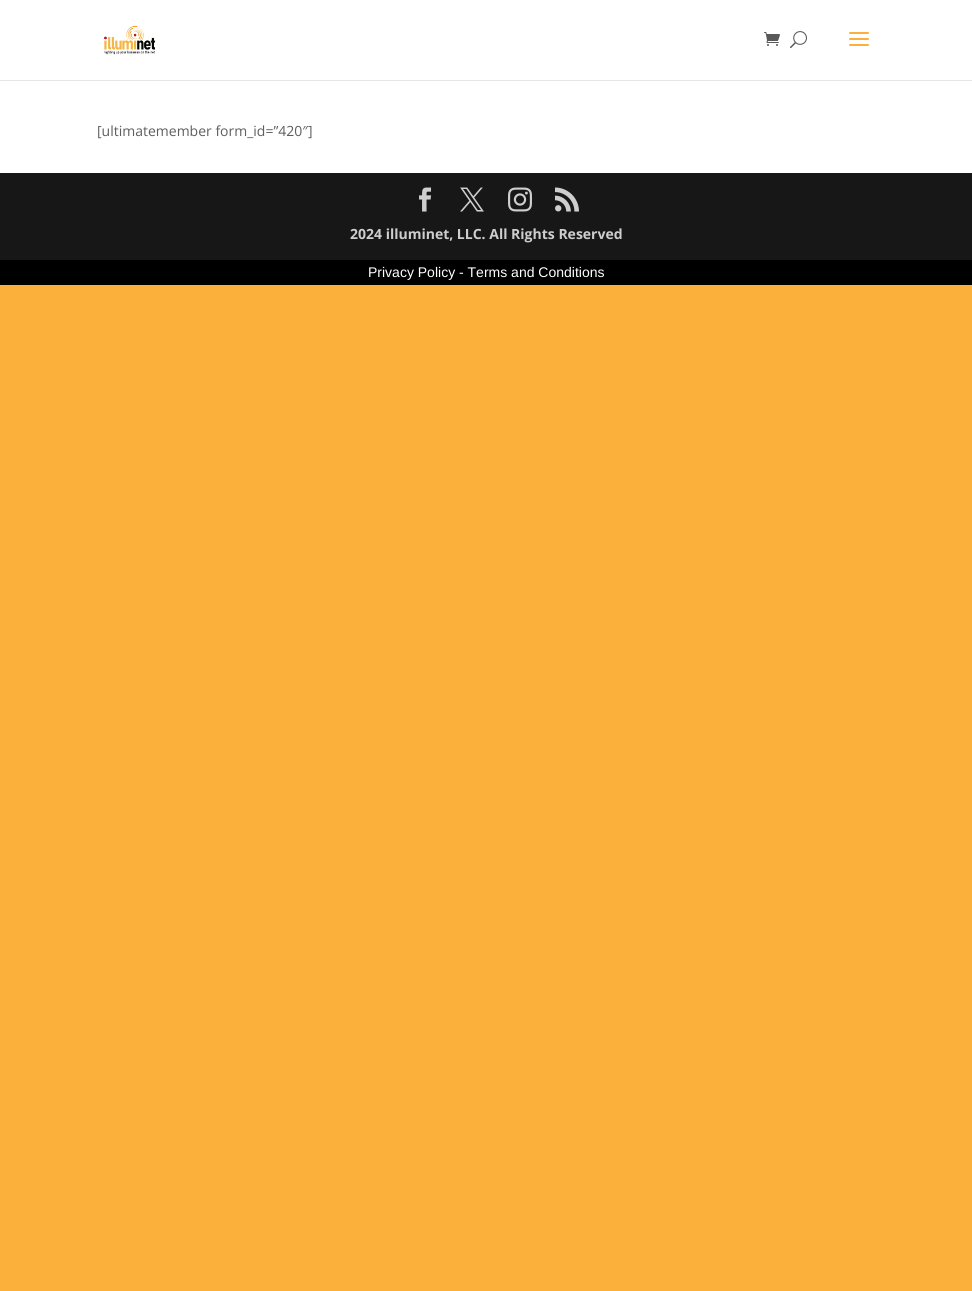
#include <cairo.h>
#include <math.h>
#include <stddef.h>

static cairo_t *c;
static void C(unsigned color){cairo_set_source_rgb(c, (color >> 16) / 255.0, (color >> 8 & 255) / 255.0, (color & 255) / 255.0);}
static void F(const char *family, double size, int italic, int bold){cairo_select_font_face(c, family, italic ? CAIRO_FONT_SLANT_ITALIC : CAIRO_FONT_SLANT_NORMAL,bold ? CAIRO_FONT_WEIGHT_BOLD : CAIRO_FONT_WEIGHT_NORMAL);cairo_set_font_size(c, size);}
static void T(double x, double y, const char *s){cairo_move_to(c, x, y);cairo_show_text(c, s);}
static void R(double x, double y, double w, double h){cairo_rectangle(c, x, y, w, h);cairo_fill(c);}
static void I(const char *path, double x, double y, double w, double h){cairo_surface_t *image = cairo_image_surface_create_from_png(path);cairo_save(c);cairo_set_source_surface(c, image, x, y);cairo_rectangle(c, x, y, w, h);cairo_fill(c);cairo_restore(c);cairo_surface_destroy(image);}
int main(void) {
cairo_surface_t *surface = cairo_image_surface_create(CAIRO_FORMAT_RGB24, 972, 1291);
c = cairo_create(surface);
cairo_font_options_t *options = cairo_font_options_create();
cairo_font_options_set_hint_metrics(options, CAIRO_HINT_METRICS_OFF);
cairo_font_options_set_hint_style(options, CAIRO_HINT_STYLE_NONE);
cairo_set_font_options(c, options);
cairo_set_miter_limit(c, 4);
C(0xfbb03b);
cairo_paint(c);
C(0xe6e6e6);
R(0,80,972,1);
C(0xffffff);
R(0,0,972,80);
I("1.png",104,25,52,30);
I("2.png",764,32,16,14);
I("3.png",790,31,17,18);
I("4.png",849,32,20,14);
R(0,81,972,92);
F("Open Sans",14,0,0);
C(0x5e5e5e);
T(97,136,"[ultimatemember form_id=”420″]");
C(0x171717);
R(0,173,972,87);
I("5.png",419,187,13,25);
I("6.png",460,187,24,25);
I("7.png",508,187,24,25);
I("8.png",555,187,24,25);
F("Open Sans",14,0,1);
C(0xcecece);
T(350,239,"2024 illuminet, LLC. All Rights Reserved");
C(0x000000);
R(0,260,972,25);
F("Liberation Sans",14,0,0);
C(0xffffff);
T(368,277,"Privacy Policy - Terms and Conditions");
cairo_surface_write_to_png(surface, "o.png");
cairo_font_options_destroy(options);
cairo_destroy(c);
cairo_surface_destroy(surface);
return 0;
}
